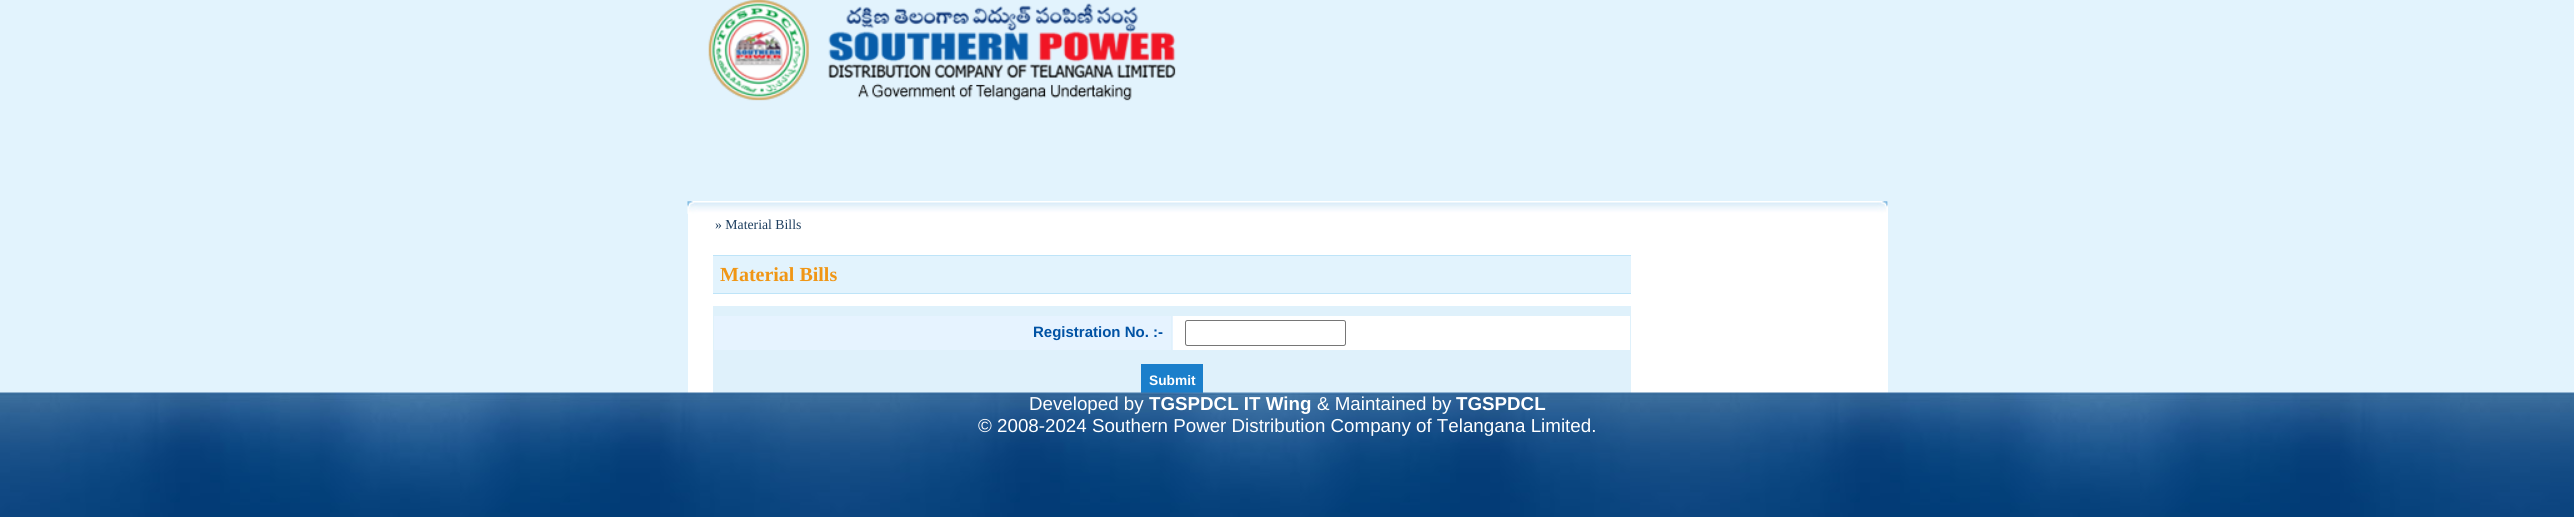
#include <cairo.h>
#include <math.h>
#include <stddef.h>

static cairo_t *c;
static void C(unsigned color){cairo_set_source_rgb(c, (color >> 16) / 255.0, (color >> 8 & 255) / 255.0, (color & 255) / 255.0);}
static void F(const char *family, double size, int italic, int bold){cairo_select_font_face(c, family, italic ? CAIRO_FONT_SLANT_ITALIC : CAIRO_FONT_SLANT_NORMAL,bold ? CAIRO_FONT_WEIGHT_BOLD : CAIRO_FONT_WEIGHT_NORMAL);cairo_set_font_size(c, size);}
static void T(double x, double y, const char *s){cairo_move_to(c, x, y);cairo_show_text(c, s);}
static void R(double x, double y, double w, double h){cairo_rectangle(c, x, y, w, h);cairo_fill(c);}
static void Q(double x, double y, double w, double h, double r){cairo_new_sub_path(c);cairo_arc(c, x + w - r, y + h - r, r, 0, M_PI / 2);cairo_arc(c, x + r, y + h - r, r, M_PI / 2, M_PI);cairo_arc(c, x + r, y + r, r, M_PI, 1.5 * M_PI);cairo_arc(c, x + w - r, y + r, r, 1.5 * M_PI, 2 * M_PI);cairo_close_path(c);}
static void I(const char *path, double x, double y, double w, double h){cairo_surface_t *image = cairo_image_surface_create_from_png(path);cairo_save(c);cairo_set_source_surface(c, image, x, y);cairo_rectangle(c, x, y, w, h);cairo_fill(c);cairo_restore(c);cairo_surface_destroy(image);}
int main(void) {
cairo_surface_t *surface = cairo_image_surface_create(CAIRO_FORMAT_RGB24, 2574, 517);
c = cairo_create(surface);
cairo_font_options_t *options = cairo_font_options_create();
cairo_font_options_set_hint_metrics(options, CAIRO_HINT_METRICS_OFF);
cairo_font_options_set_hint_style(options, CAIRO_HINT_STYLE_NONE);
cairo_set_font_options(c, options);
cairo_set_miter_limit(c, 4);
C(0xe2f3fd);
cairo_paint(c);
I("1.png",708,0,468,101);
C(0xffffff);
R(688,201,1200,192);
I("2.png",687,201,1201,13);
F("Liberation Serif",13.75,0,0);
C(0x1d3e5f);
T(715,229,"» Material Bills");
C(0xe2f3fd);
R(713,256,918,37);
C(0xbee4f8);
R(713,255,918,1);
R(713,293,918,1);
F("Liberation Serif",20,0,1);
C(0xf09615);
T(720,281,"Material Bills");
C(0xdff1fb);
R(713,306,918,87);
C(0xe6f3ff);
R(714,316,459,34);
F("Liberation Sans",15,0,1);
C(0x0052a4);
T(1033,337,"Registration No. :-");
C(0xffffff);
R(1173,316,457,34);
C(0xdff1fb);
R(1171,315,1,36);
Q(1185.5,320.5,160,25,2);
C(0x767676);
cairo_set_line_width(c,1);
cairo_stroke(c);
C(0x1b7fcb);
R(1141,364,62,29);
F("Liberation Sans",13.75,0,1);
C(0xffffff);
T(1149,385,"Submit");
I("3.png",0,392,2574,125);
F("Liberation Sans",18.75,0,0);
T(1029,410,"Developed by");
F("Liberation Sans",18.75,0,1);
T(1149,410,"TGSPDCL IT Wing");
F("Liberation Sans",18.75,0,0);
T(1317,410,"& Maintained by");
F("Liberation Sans",18.75,0,1);
T(1456,410,"TGSPDCL");
F("Liberation Sans",18.75,0,0);
T(978,432,"© 2008-2024 Southern Power Distribution Company of Telangana Limited.");
cairo_surface_write_to_png(surface, "o.png");
cairo_font_options_destroy(options);
cairo_destroy(c);
cairo_surface_destroy(surface);
return 0;
}
